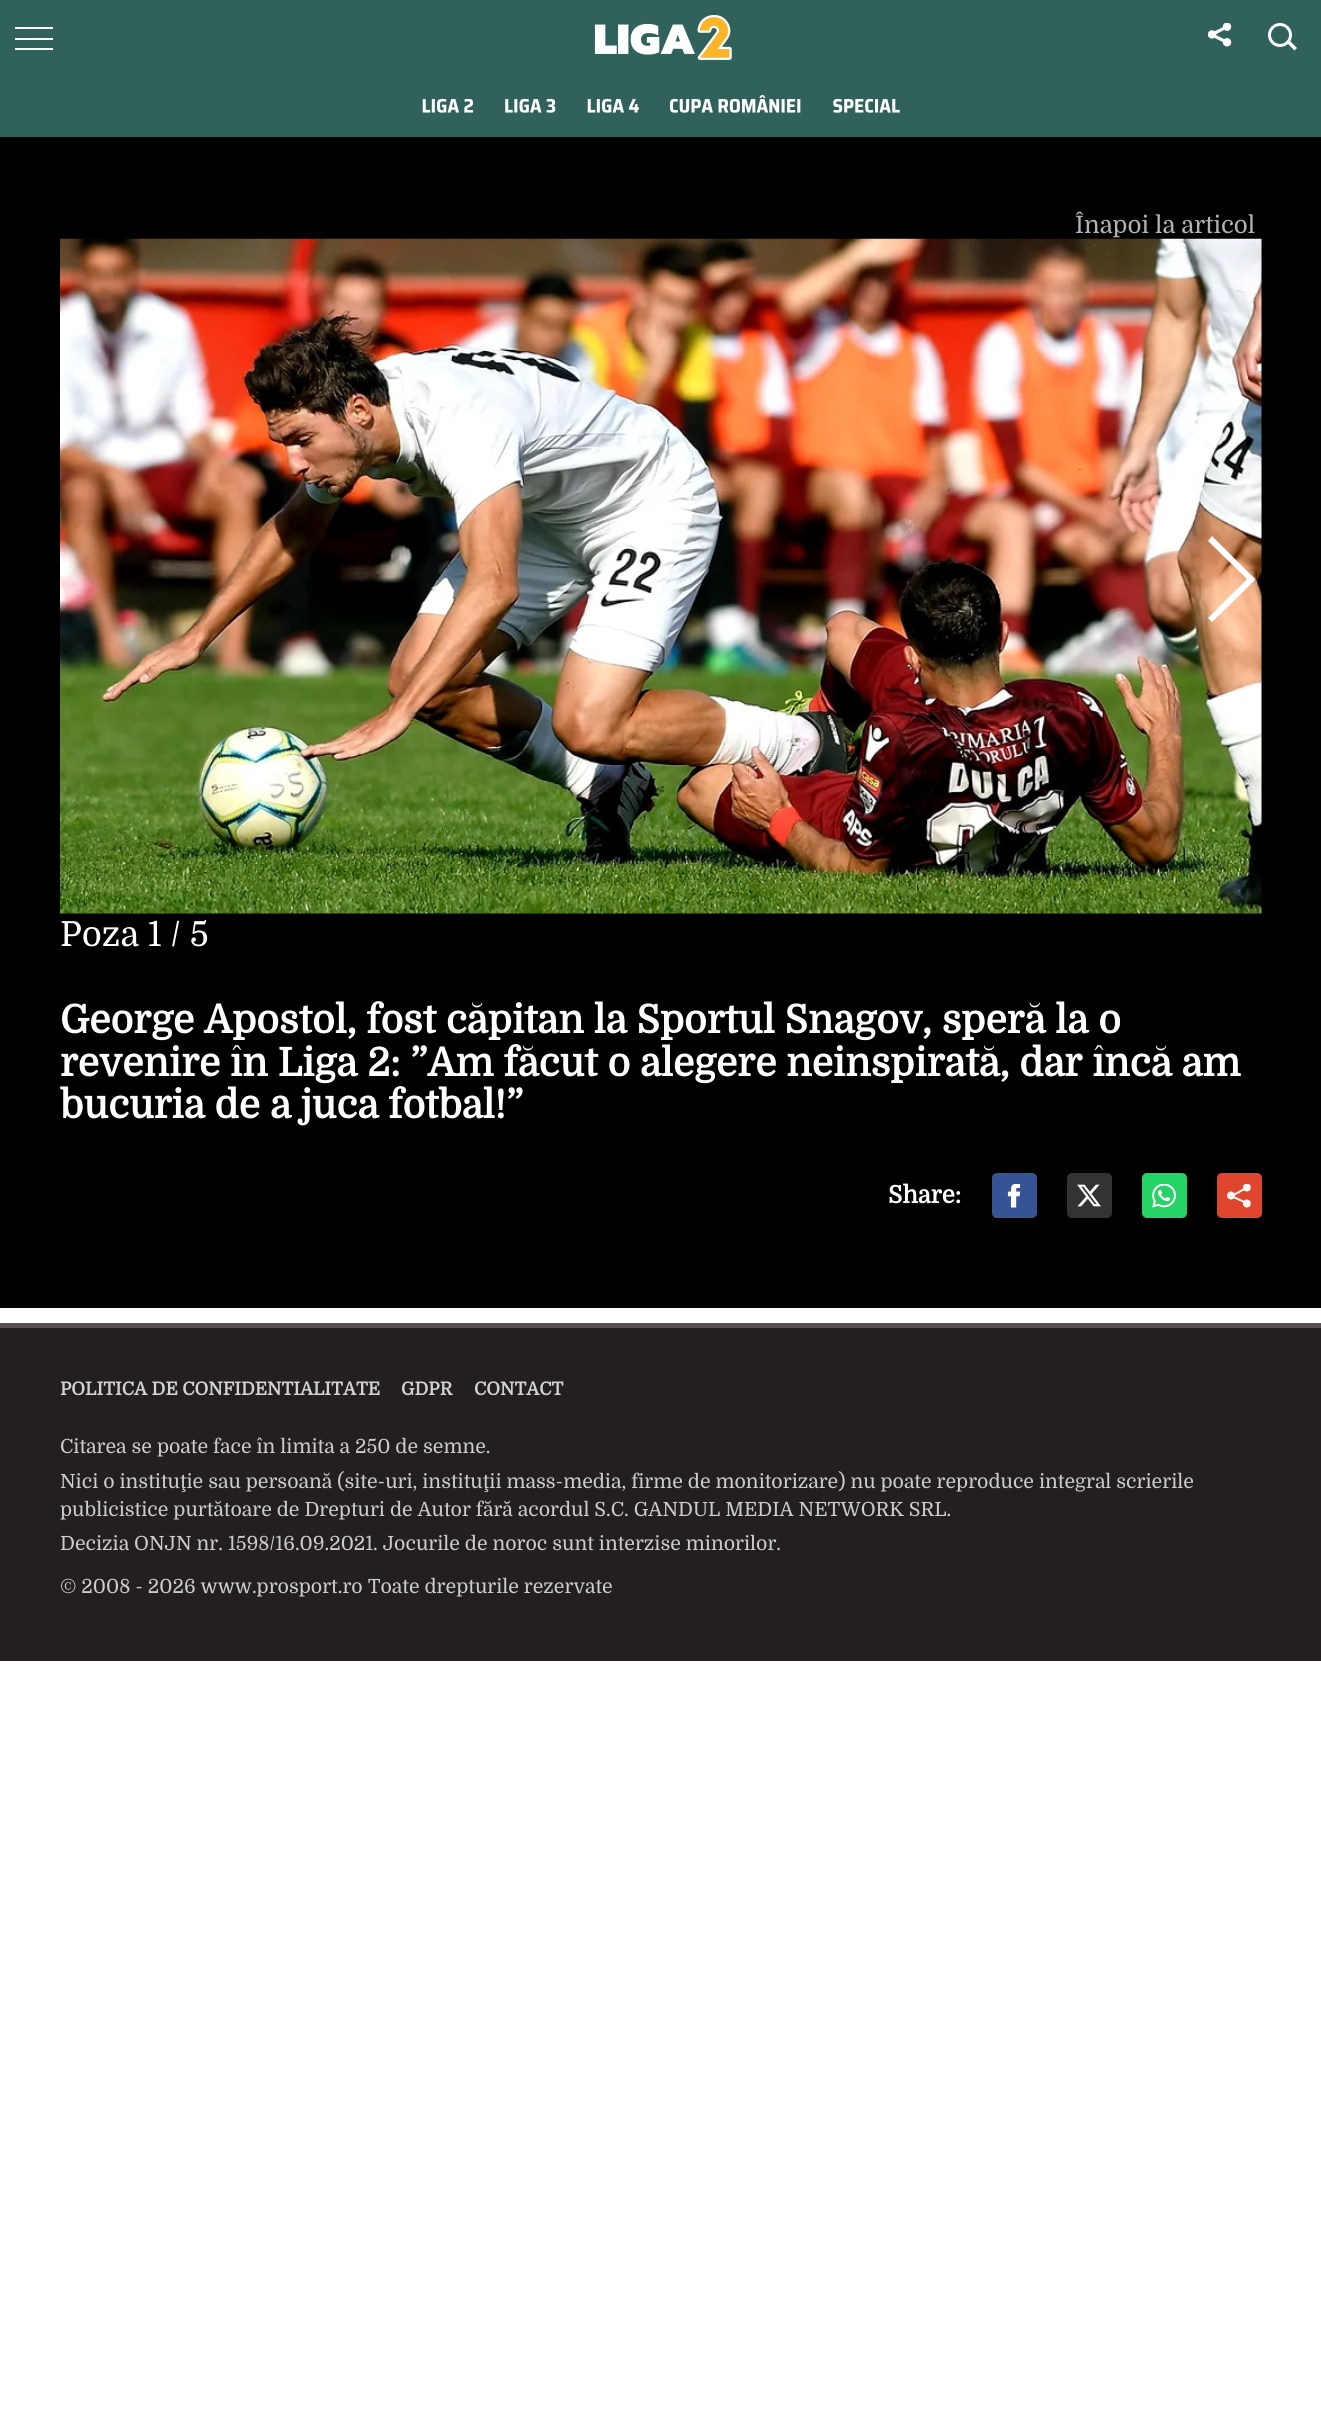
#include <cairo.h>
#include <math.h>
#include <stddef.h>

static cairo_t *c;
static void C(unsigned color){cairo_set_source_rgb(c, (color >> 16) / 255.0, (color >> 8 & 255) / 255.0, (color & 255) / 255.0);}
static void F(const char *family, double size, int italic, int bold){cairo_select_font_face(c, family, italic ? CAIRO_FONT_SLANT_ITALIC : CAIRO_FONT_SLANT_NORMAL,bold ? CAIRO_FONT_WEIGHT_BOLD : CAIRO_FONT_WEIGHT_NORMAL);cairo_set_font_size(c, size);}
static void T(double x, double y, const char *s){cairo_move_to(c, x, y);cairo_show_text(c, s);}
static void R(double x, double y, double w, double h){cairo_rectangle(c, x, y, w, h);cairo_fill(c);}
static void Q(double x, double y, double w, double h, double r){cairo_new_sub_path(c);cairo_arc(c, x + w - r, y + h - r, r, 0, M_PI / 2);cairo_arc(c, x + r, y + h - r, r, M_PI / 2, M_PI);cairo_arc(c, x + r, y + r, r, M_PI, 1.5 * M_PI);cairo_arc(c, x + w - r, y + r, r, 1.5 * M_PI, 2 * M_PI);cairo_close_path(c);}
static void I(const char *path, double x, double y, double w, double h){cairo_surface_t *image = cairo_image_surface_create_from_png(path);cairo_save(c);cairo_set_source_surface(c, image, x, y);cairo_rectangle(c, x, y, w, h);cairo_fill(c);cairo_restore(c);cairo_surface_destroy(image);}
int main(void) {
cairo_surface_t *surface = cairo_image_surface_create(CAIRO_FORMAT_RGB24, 1321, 2424);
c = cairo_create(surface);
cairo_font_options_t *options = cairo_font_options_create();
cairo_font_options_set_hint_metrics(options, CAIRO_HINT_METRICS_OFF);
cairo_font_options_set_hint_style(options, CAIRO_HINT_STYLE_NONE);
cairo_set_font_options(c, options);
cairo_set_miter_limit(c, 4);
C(0xffffff);
cairo_paint(c);
C(0x30625b);
R(0,0,1321,137);
C(0xffffff);
R(15,38,38,2);
R(15,27,38,2);
R(15,48,38,2);
I("1.png",594,15,138,45);
I("2.png",1208,23,24,24);
cairo_arc(c,1280,35,10.5,0,2 * M_PI);
cairo_set_line_width(c,3);
cairo_stroke(c);
cairo_new_path(c);
cairo_move_to(c,1286,42);
cairo_line_to(c,1288.5,39.5);
cairo_line_to(c,1297,48);
cairo_line_to(c,1294.5,50.5);
cairo_close_path(c);
cairo_fill(c);
I("3.png",422,98,51,15);
I("4.png",505,98,51,15);
I("5.png",587,98,52,15);
I("6.png",669,95,132,18);
I("7.png",833,98,67,15);
C(0x000000);
R(0,137,1321,1171);
F("Domine",24,0,0);
C(0xb3b3b3);
T(1075,233,"Înapoi la articol");
I("8.png",60,238,1202,676);
C(0xffffff);
cairo_new_path(c);
cairo_move_to(c,1212,536);
cairo_line_to(c,1255,579);
cairo_line_to(c,1251,583);
cairo_line_to(c,1208,541);
cairo_close_path(c);
cairo_fill(c);
cairo_new_path(c);
cairo_move_to(c,1208,618);
cairo_line_to(c,1251,575);
cairo_line_to(c,1255,580);
cairo_line_to(c,1212,622);
cairo_close_path(c);
cairo_fill(c);
F("Domine",34.5,0,0);
T(60,946,"Poza 1 / 5");
F("Domine",39,0,1);
T(60,1033,"George Apostol, fost căpitan la Sportul Snagov, speră la o");
T(60,1076,"revenire în Liga 2: ”Am făcut o alegere neinspirată, dar încă am");
T(60,1118,"bucuria de a juca fotbal!”");
F("Domine",24,0,1);
T(888,1203,"Share:");
C(0x365396);
Q(992,1173,45,45,5);
cairo_fill(c);
I("9.png",1007,1184,14,24);
C(0x333333);
Q(1067,1173,45,45,5);
cairo_fill(c);
I("10.png",1077,1184,24,23);
C(0x25d366);
Q(1142,1173,45,45,5);
cairo_fill(c);
I("11.png",1152,1184,24,24);
C(0xe0462e);
Q(1217,1173,45,45,5);
cairo_fill(c);
I("12.png",1227,1184,24,24);
C(0x231f20);
R(0,1328,1321,333);
C(0x594f51);
R(0,1323,1321,5);
F("Domine",18,0,1);
C(0xd3d2d2);
T(60,1395,"POLITICA DE CONFIDENTIALITATE");
T(401,1395,"GDPR");
T(474,1395,"CONTACT");
F("Domine",19.5,0,0);
C(0xcccccc);
T(60,1453,"Citarea se poate face în limita a 250 de semne.");
T(60,1488,"Nici o instituţie sau persoană (site-uri, instituţii mass-media, firme de monitorizare) nu poate reproduce integral scrierile");
T(60,1516,"publicistice purtătoare de Drepturi de Autor fără acordul S.C. GANDUL MEDIA NETWORK SRL.");
T(60,1550,"Decizia ONJN nr. 1598/16.09.2021. Jocurile de noroc sunt interzise minorilor.");
T(60,1593,"© 2008 - 2026 www.prosport.ro Toate drepturile rezervate");
cairo_surface_write_to_png(surface, "o.png");
cairo_font_options_destroy(options);
cairo_destroy(c);
cairo_surface_destroy(surface);
return 0;
}
